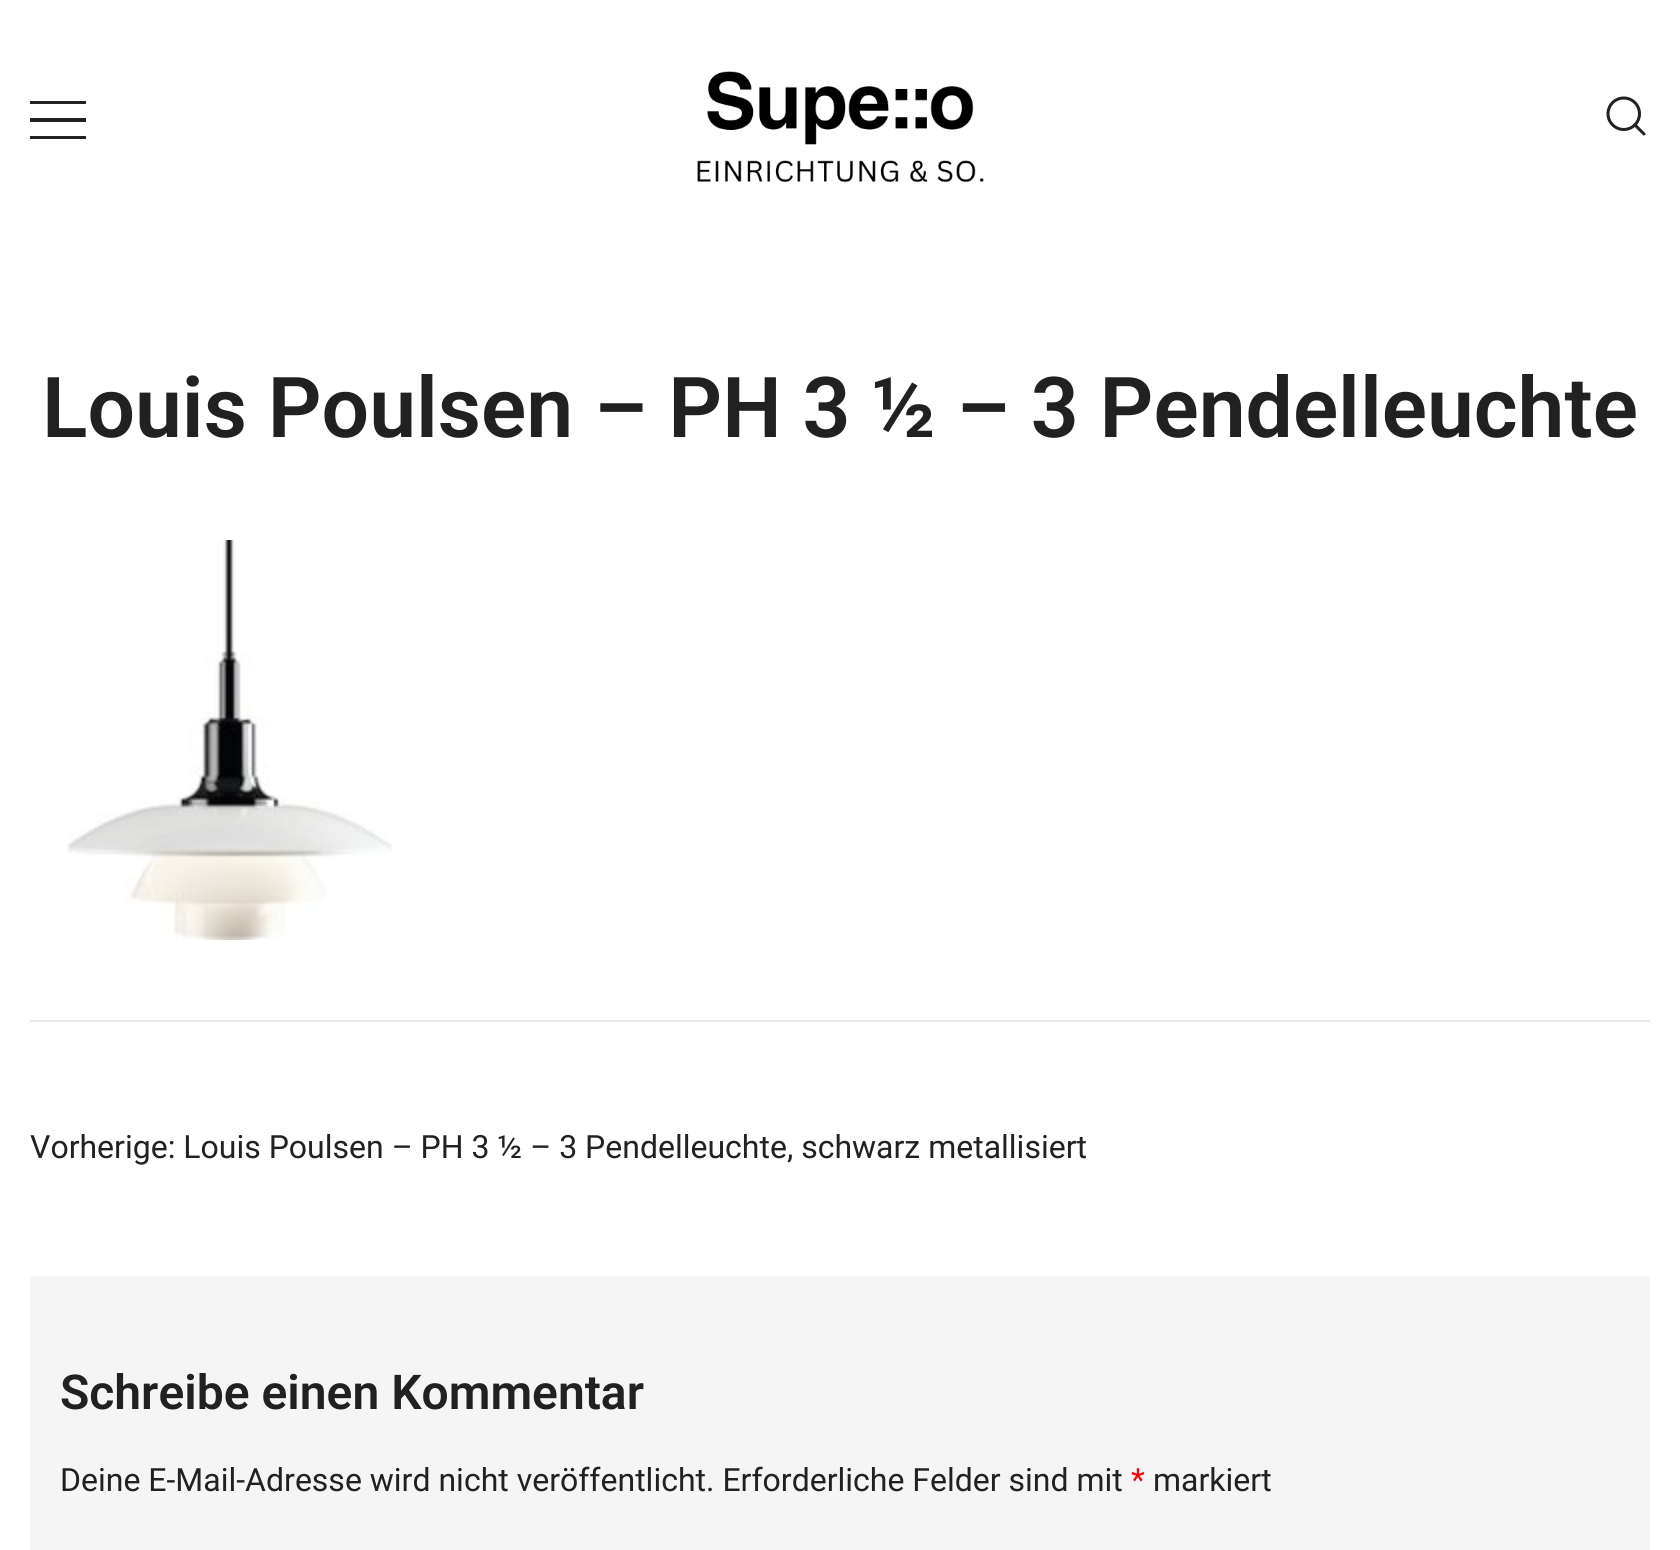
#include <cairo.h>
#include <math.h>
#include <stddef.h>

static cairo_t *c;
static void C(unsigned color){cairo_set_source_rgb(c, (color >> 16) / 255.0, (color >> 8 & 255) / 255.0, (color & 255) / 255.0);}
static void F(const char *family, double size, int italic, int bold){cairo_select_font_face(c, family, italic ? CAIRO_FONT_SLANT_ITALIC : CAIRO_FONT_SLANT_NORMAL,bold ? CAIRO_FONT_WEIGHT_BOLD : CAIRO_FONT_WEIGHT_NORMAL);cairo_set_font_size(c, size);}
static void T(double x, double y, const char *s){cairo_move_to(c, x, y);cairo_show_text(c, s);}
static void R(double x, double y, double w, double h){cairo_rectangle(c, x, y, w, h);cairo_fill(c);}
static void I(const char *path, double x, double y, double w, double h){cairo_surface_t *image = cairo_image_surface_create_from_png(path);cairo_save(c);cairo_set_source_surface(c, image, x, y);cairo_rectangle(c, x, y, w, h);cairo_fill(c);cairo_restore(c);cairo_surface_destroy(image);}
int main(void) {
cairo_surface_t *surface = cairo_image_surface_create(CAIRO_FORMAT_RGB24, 1680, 1550);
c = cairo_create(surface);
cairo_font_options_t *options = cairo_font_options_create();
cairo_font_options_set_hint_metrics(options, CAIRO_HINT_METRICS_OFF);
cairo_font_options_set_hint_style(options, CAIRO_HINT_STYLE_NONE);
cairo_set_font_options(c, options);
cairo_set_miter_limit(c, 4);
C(0xffffff);
cairo_paint(c);
C(0x212121);
R(30,101,56,3);
R(30,118,56,4);
R(30,136,56,3);
I("1.png",697,71,287,112);
I("2.png",1606,96,40,40);
F("Roboto SemiBold",84,0,0);
T(42,437,"Louis Poulsen – PH 3 ½ – 3 Pendelleuchte");
I("3.png",67,540,325,400);
C(0xe9e9e9);
R(30,1020,1620,2);
F("Roboto",32,0,0);
C(0x212121);
T(30,1158,"Vorherige: Louis Poulsen – PH 3 ½ – 3 Pendelleuchte, schwarz metallisiert");
C(0xf5f5f5);
R(30,1276,1620,274);
F("Roboto SemiBold",48,0,0);
C(0x212121);
T(60,1409,"Schreibe einen Kommentar");
F("Roboto",32,0,0);
T(60,1491,"Deine E-Mail-Adresse wird nicht veröffentlicht. Erforderliche Felder sind mit");
C(0xff0000);
T(1131,1491,"*");
C(0x212121);
T(1153,1491,"markiert");
cairo_surface_write_to_png(surface, "o.png");
cairo_font_options_destroy(options);
cairo_destroy(c);
cairo_surface_destroy(surface);
return 0;
}
